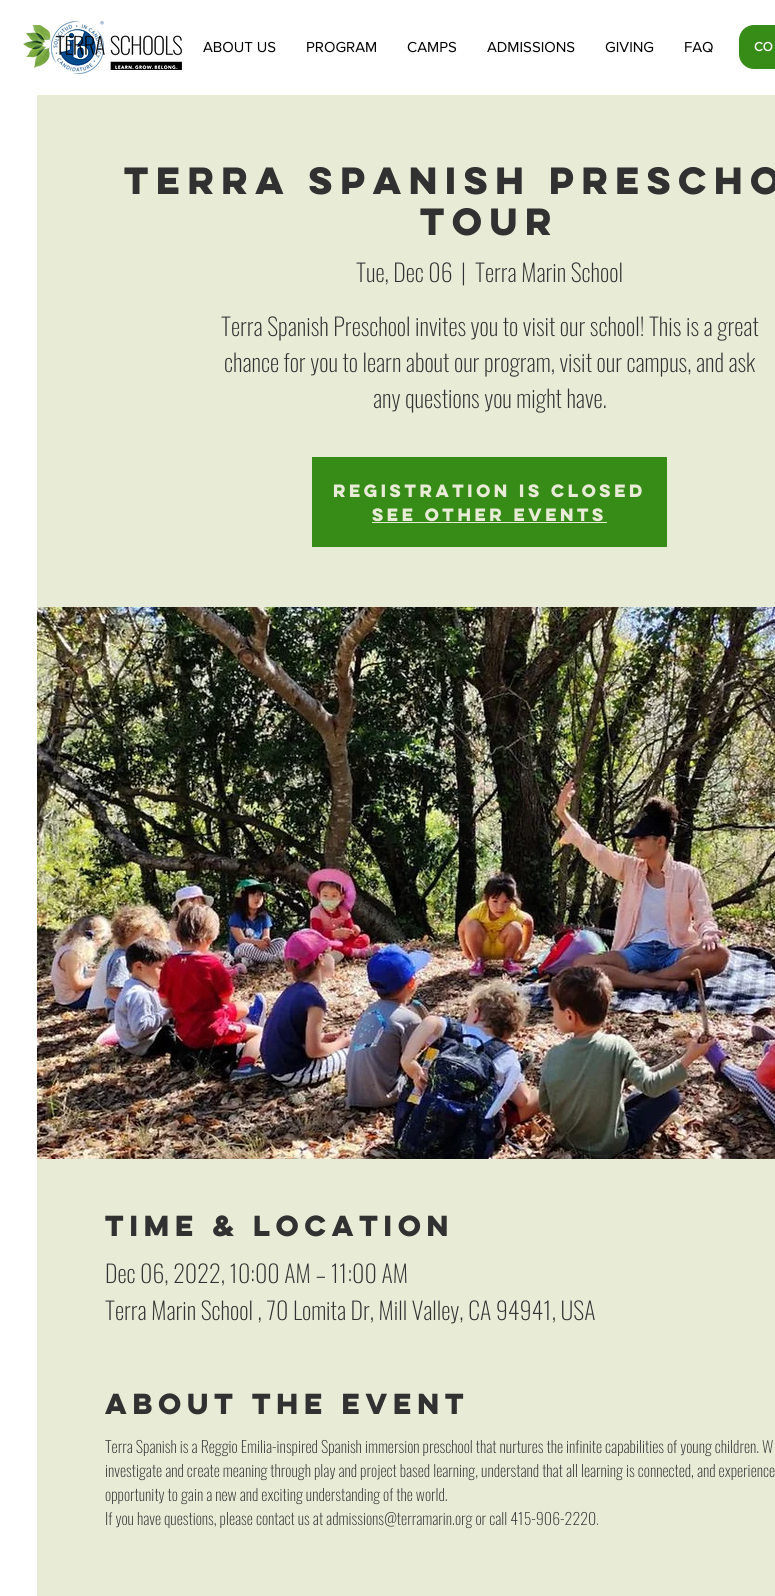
#include <cairo.h>
#include <math.h>
#include <stddef.h>

static cairo_t *c;
static void C(unsigned color){cairo_set_source_rgb(c, (color >> 16) / 255.0, (color >> 8 & 255) / 255.0, (color & 255) / 255.0);}
static void F(const char *family, double size, int italic, int bold){cairo_select_font_face(c, family, italic ? CAIRO_FONT_SLANT_ITALIC : CAIRO_FONT_SLANT_NORMAL,bold ? CAIRO_FONT_WEIGHT_BOLD : CAIRO_FONT_WEIGHT_NORMAL);cairo_set_font_size(c, size);}
static void T(double x, double y, const char *s){cairo_move_to(c, x, y);cairo_show_text(c, s);}
static void R(double x, double y, double w, double h){cairo_rectangle(c, x, y, w, h);cairo_fill(c);}
static void Q(double x, double y, double w, double h, double r){cairo_new_sub_path(c);cairo_arc(c, x + w - r, y + h - r, r, 0, M_PI / 2);cairo_arc(c, x + r, y + h - r, r, M_PI / 2, M_PI);cairo_arc(c, x + r, y + r, r, M_PI, 1.5 * M_PI);cairo_arc(c, x + w - r, y + r, r, 1.5 * M_PI, 2 * M_PI);cairo_close_path(c);}
static void I(const char *path, double x, double y, double w, double h){cairo_surface_t *image = cairo_image_surface_create_from_png(path);cairo_save(c);cairo_set_source_surface(c, image, x, y);cairo_rectangle(c, x, y, w, h);cairo_fill(c);cairo_restore(c);cairo_surface_destroy(image);}
int main(void) {
cairo_surface_t *surface = cairo_image_surface_create(CAIRO_FORMAT_RGB24, 775, 1596);
c = cairo_create(surface);
cairo_font_options_t *options = cairo_font_options_create();
cairo_font_options_set_hint_metrics(options, CAIRO_HINT_METRICS_OFF);
cairo_font_options_set_hint_style(options, CAIRO_HINT_STYLE_NONE);
cairo_set_font_options(c, options);
cairo_set_miter_limit(c, 4);
C(0xffffff);
cairo_paint(c);
I("2.png",51,21,53,53);
I("1.png",23,25,159,45);
F("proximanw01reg",15,0,0);
C(0x000000);
T(203,52,"ABOUT US");
T(306,52,"PROGRAM");
T(407,52,"CAMPS");
T(487,52,"ADMISSIONS");
T(605,52,"GIVING");
T(684,52,"FAQ");
C(0x378b17);
Q(739,25,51,44,15);
cairo_fill(c);
F("proximanw01reg",13,0,1);
C(0xffffff);
T(754,51,"CO");
C(0xe8ecd7);
R(37,95,738,1501);
F("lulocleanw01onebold",34,0,1);
C(0x313131);
T(124,194,"Terra Spanish Prescho");
T(420,235,"Tour");
F("Oswald ExtraLight",24,0,0);
T(356,282,"Tue, Dec 06");
T(461,282,"|");
T(475,282,"Terra Marin School");
T(221,336,"Terra Spanish Preschool invites you to visit our school! This is a great");
T(224,372,"chance for you to learn about our program, visit our campus, and ask");
T(373,408,"any questions you might have.");
C(0x378b17);
R(312,457,355,90);
F("lulocleanw01onebold",16,0,1);
C(0xe8ecd7);
T(333,497,"Registration is closed");
T(372,521,"See other events");
R(372,522,235,1);
I("3.png",37,607,738,552);
F("lulocleanw01onebold",26,0,1);
C(0x313131);
T(105,1236,"Time & Location");
F("Oswald ExtraLight",24,0,0);
T(105,1283,"Dec 06, 2022, 10:00 AM – 11:00 AM");
T(105,1320,"Terra Marin School , 70 Lomita Dr, Mill Valley, CA 94941, USA");
F("lulocleanw01onebold",26,0,1);
T(105,1414,"About the event");
F("Oswald ExtraLight",16,0,0);
T(105,1453,"Terra Spanish is a Reggio Emilia-inspired Spanish immersion preschool that nurtures the infinite capabilities of young children. W");
T(105,1477,"investigate and create meaning through play and project based learning, understand that all learning is connected, and experience");
T(105,1501,"opportunity to gain a new and exciting understanding of the world.");
T(105,1525,"If you have questions, please contact us at admissions@terramarin.org or call 415-906-2220.");
cairo_surface_write_to_png(surface, "o.png");
cairo_font_options_destroy(options);
cairo_destroy(c);
cairo_surface_destroy(surface);
return 0;
}
